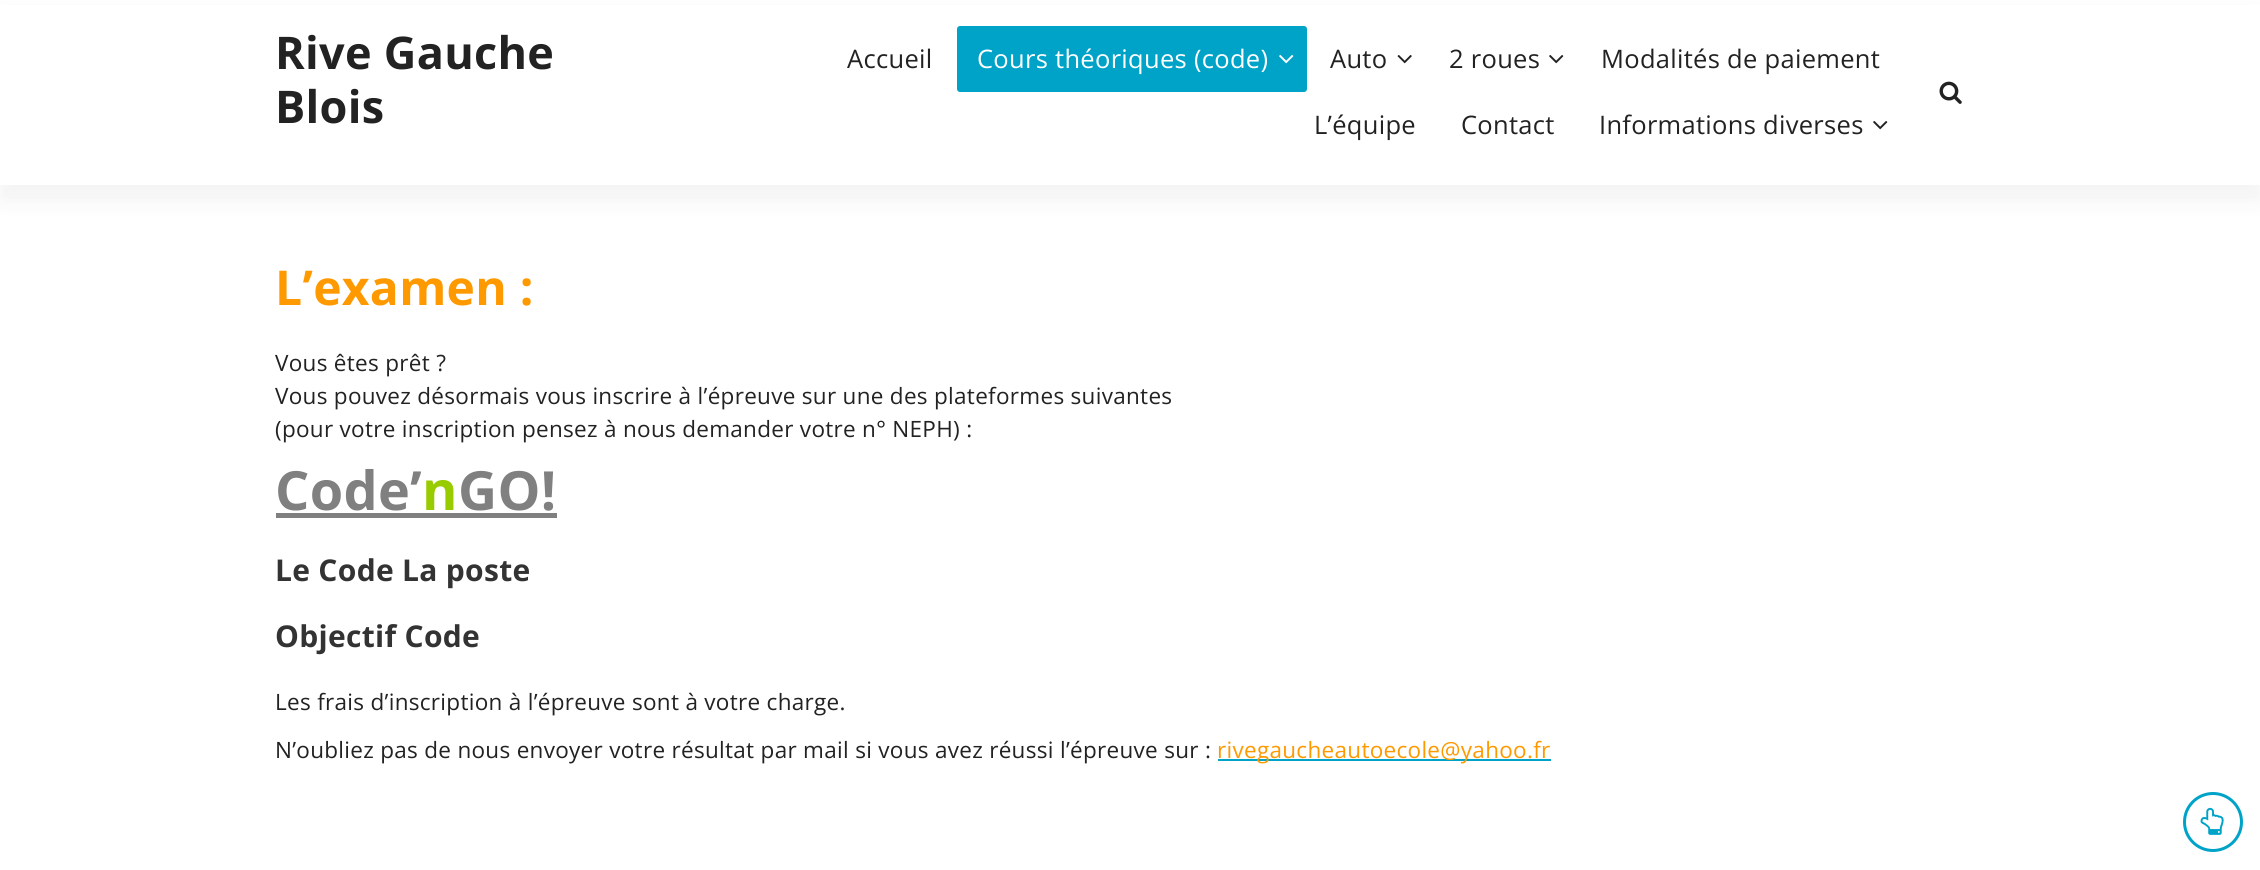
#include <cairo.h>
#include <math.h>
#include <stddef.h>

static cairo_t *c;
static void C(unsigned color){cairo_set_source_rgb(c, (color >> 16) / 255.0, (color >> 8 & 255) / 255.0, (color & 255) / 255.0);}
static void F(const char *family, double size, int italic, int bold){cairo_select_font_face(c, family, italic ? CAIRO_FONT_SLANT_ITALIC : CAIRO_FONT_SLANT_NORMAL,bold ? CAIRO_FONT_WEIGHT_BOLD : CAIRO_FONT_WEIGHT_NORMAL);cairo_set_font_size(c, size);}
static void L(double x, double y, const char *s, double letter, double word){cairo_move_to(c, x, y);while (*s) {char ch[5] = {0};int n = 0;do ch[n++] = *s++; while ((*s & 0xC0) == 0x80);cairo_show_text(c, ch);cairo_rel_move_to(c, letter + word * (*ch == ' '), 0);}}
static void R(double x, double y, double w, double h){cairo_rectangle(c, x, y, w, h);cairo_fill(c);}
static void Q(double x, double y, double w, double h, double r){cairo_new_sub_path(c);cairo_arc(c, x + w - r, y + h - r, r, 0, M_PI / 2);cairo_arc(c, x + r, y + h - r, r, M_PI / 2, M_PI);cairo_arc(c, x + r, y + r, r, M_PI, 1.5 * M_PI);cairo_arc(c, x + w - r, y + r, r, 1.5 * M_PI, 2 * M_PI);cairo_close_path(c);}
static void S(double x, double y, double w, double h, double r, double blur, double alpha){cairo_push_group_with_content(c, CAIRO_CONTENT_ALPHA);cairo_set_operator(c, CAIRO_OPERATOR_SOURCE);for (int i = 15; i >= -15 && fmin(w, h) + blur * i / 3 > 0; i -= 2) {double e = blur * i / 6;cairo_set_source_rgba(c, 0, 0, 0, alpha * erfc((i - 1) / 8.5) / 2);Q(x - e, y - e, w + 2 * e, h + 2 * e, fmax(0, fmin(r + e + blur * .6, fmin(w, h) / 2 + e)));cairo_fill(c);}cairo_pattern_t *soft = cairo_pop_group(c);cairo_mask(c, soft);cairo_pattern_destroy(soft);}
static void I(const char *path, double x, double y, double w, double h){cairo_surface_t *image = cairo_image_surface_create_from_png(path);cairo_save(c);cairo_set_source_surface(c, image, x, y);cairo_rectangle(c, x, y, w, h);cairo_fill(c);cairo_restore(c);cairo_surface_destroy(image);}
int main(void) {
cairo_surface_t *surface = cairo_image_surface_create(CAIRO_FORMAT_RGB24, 2260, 870);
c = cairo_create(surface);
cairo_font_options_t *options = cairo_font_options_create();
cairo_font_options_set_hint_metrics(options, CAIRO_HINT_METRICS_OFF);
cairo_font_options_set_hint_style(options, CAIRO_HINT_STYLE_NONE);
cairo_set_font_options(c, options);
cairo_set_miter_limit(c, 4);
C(0xffffff);
cairo_paint(c);
C(0x000000);
S(0,14,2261,186,0,11,.05);
C(0xffffff);
R(0,5,2260,180);
F("Open Sans",45,0,1);
C(0x222222);
L(275,69,"Rive Gauche",.3,0);
L(275,123,"Blois",.3,0);
F("Open Sans",25.5,0,0);
L(847,68,"Accueil",.3,0);
C(0x00a3c8);
Q(957,26,350,66,3);
cairo_fill(c);
C(0xffffff);
L(977,68,"Cours théoriques (code)",.3,0);
I("1.png",1279,55,15,9);
C(0x222222);
L(1330,68,"Auto",.3,0);
I("2.png",1397,55,15,9);
L(1449,68,"2 roues",.3,0);
I("3.png",1549,55,15,9);
L(1601,68,"Modalités de paiement",.3,0);
L(1314,134,"L’équipe",.3,0);
L(1461,134,"Contact",.3,0);
L(1599,134,"Informations diverses",.3,0);
I("3.png",1873,121,15,9);
I("4.png",1939,81,23,23);
F("Open Sans",48,0,1);
C(0xff9900);
L(275,305,"L’examen :",.3,0);
F("Open Sans",22.5,0,0);
C(0x222222);
L(275,371,"Vous êtes prêt ?",.3,0);
L(275,404,"Vous pouvez désormais vous inscrire à l’épreuve sur une des plateformes suivantes",.3,0);
L(275,437,"(pour votre inscription pensez à nous demander votre n° NEPH) :",.3,0);
F("Open Sans",54,0,1);
C(0x808080);
L(275,510,"Code’",.3,0);
C(0x99cc00);
L(422,510,"n",.3,0);
C(0x808080);
R(276,513,281,5);
L(458,510,"GO!",.3,0);
F("Open Sans",30,0,1);
C(0x333333);
L(275,581,"Le Code La poste",.3,0);
L(275,647,"Objectif Code",.3,0);
F("Open Sans",22.5,0,0);
C(0x222222);
L(275,710,"Les frais d’inscription à l’épreuve sont à votre charge.",.3,0);
L(275,758,"N’oubliez pas de nous envoyer votre résultat par mail si vous avez réussi l’épreuve sur :",.3,0);
C(0x00a3c8);
R(1218,759,333,2);
C(0xff9900);
L(1217,758,"rivegaucheautoecole@yahoo.fr",.3,0);
cairo_new_path(c);
cairo_arc(c,2213,822,28.5,0,2 * M_PI);
C(0x00a3c8);
cairo_set_line_width(c,3);
cairo_stroke(c);
I("5.png",2200,807,24,28);
cairo_surface_write_to_png(surface, "o.png");
cairo_font_options_destroy(options);
cairo_destroy(c);
cairo_surface_destroy(surface);
return 0;
}
